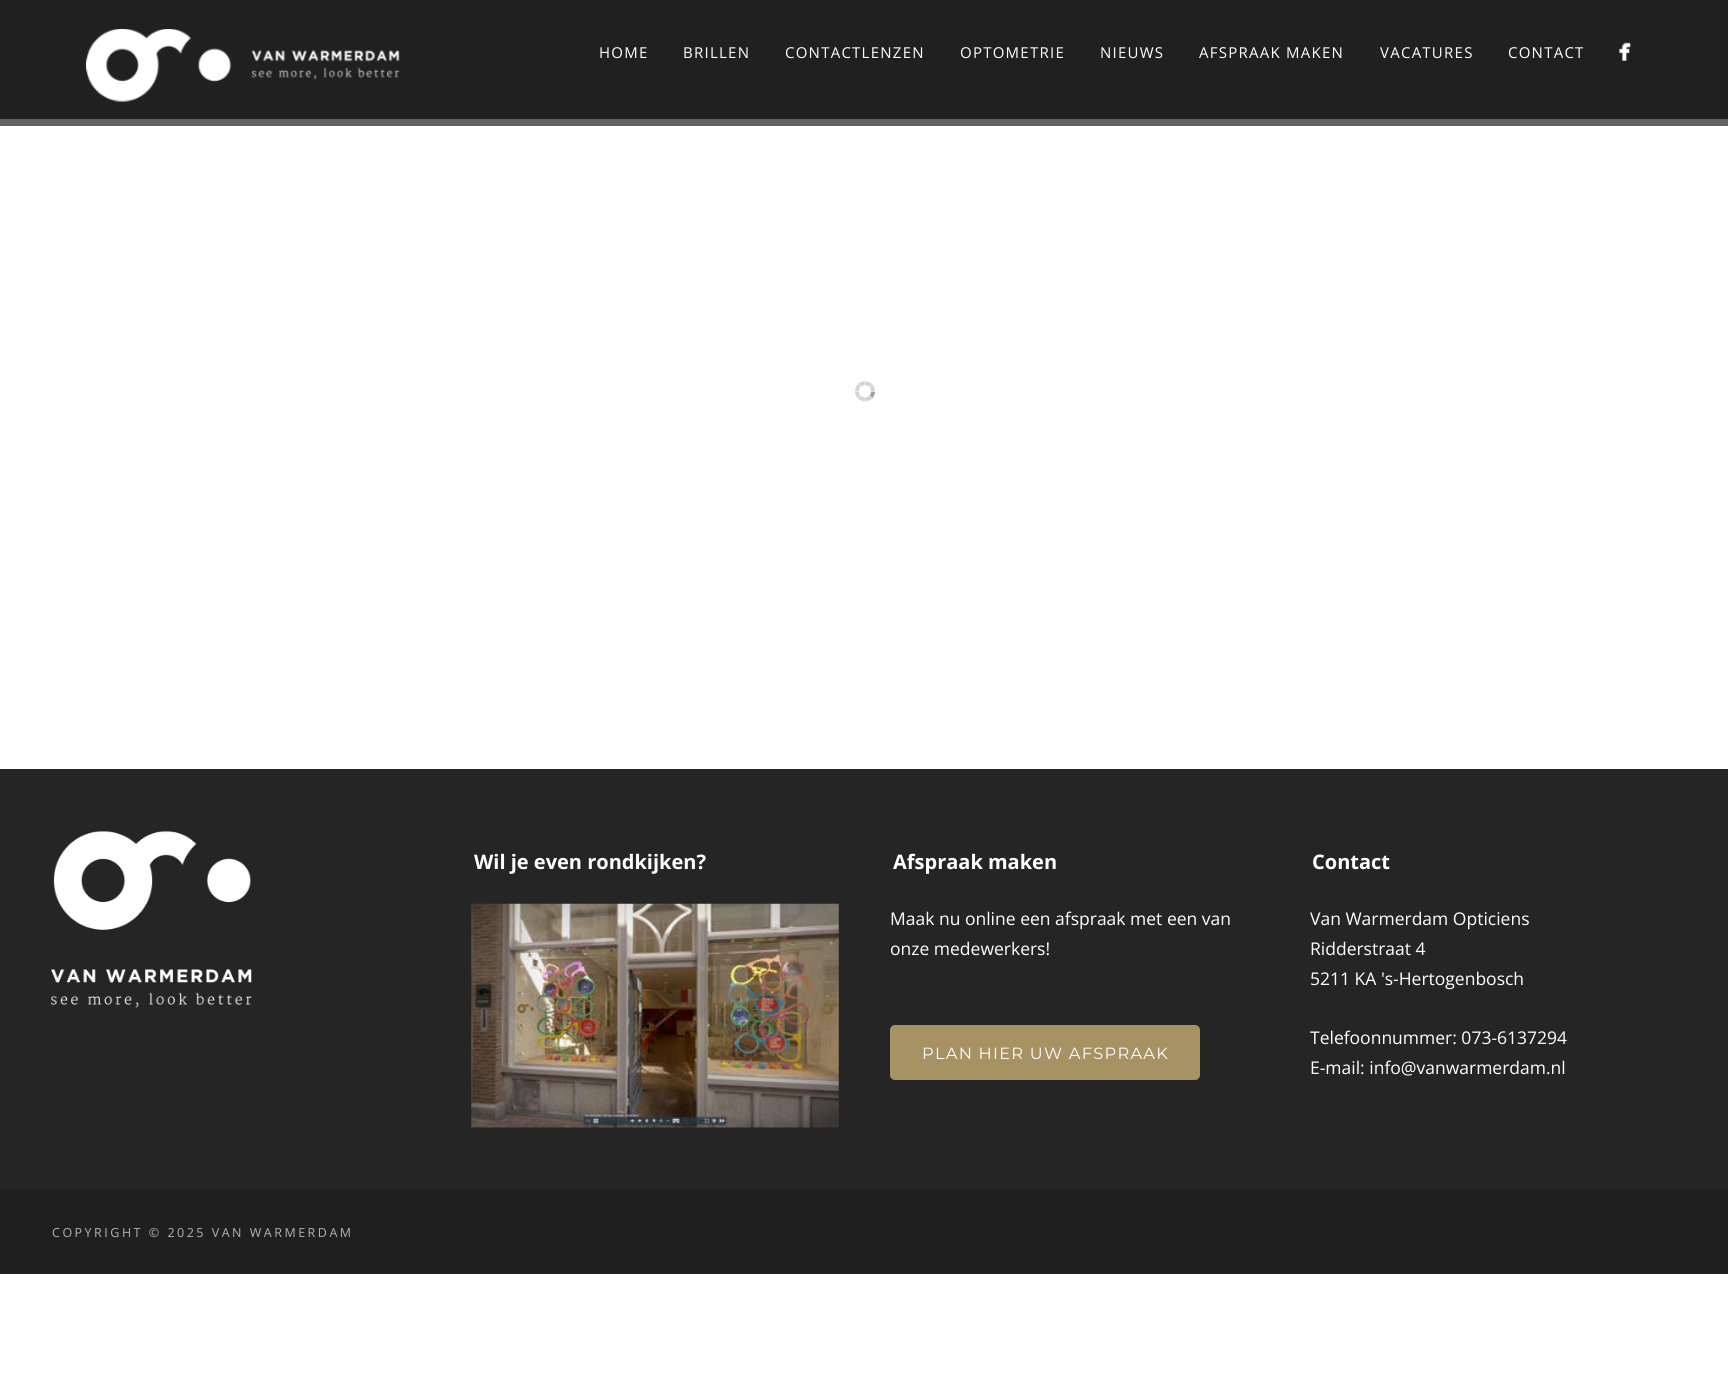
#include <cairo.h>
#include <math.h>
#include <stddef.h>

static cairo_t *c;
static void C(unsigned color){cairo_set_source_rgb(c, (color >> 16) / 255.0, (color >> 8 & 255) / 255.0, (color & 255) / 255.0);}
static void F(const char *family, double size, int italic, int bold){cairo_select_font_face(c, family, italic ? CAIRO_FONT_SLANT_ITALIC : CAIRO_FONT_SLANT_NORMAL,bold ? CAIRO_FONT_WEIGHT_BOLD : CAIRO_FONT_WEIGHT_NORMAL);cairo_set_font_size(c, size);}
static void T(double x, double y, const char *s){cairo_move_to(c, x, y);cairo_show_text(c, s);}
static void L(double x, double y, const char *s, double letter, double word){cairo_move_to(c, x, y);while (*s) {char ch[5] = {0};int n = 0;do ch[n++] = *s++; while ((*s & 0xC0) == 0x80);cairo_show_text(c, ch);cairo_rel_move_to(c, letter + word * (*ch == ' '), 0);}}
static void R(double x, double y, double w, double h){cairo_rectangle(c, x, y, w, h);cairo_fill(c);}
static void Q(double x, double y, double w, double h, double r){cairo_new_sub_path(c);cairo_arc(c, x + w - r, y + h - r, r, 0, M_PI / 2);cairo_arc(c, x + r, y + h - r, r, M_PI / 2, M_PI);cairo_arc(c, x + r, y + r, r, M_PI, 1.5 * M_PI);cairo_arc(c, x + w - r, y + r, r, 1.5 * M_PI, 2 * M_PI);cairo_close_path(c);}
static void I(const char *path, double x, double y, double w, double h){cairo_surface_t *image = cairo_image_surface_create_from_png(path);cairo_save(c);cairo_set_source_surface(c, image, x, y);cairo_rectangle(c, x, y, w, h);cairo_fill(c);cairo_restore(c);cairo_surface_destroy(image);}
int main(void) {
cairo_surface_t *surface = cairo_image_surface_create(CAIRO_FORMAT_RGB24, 1728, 1396);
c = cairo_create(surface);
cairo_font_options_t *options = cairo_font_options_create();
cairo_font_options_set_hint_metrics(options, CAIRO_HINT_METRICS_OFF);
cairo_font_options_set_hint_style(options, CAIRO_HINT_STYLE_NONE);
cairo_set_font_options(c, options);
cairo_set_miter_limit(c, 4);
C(0xffffff);
cairo_paint(c);
C(0x626262);
R(0,119,1728,7);
C(0x202020);
R(0,0,1728,119);
I("1.png",86,29,314,73);
F("Open Sans",15,0,0);
C(0xffffff);
L(599,58,"HOME",1.25,0);
L(683,58,"BRILLEN",1.25,0);
L(785,58,"CONTACTLENZEN",1.25,0);
L(960,58,"OPTOMETRIE",1.25,0);
L(1100,58,"NIEUWS",1.25,0);
L(1199,58,"AFSPRAAK MAKEN",1.25,0);
L(1380,58,"VACATURES",1.25,0);
L(1508,58,"CONTACT",1.25,0);
I("2.png",1619,42,12,19);
I("3.png",855,381,20,21);
C(0x252525);
R(0,769,1728,421);
I("4.png",51,831,201,177);
F("Open Sans",20,0,1);
C(0xffffff);
T(474,869,"Wil je even rondkijken?");
I("5.png",471,903,368,225);
T(893,869,"Afspraak maken");
F("Open Sans",17.5,0,0);
T(890,925,"Maak nu online een afspraak met een van");
T(890,955,"onze medewerkers!");
C(0xa79264);
Q(890,1025,310,55,5);
cairo_fill(c);
F("Montserrat",16.25,0,0);
C(0xffffff);
L(922,1059,"PLAN HIER UW AFSPRAAK",1.25,0);
F("Open Sans",20,0,1);
T(1312,869,"Contact");
F("Open Sans",17.5,0,0);
T(1310,925,"Van Warmerdam Opticiens");
T(1310,955,"Ridderstraat 4");
T(1310,985,"5211 KA 's-Hertogenbosch");
T(1310,1044,"Telefoonnummer: 073-6137294");
T(1310,1074,"E-mail: info@vanwarmerdam.nl");
C(0x1f1f1f);
R(0,1190,1728,84);
F("Open Sans",12.5,0,0);
C(0xb3b3b1);
L(52,1237,"COPYRIGHT © 2025 VAN WARMERDAM",2.5,0);
cairo_surface_write_to_png(surface, "o.png");
cairo_font_options_destroy(options);
cairo_destroy(c);
cairo_surface_destroy(surface);
return 0;
}
